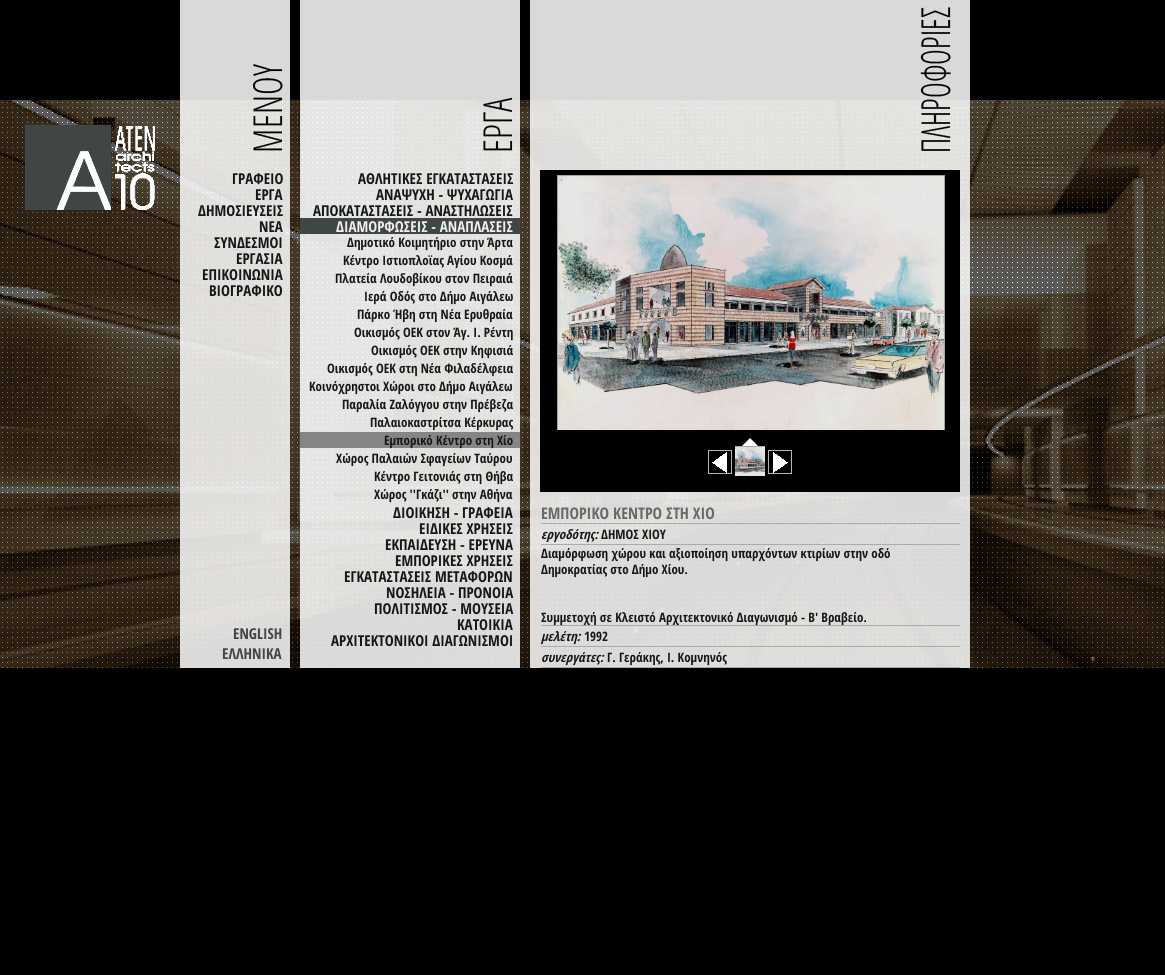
#include <cairo.h>
#include <math.h>
#include <stddef.h>

static cairo_t *c;
static void C(unsigned color){cairo_set_source_rgb(c, (color >> 16) / 255.0, (color >> 8 & 255) / 255.0, (color & 255) / 255.0);}
static void F(const char *family, double size, int italic, int bold){cairo_select_font_face(c, family, italic ? CAIRO_FONT_SLANT_ITALIC : CAIRO_FONT_SLANT_NORMAL,bold ? CAIRO_FONT_WEIGHT_BOLD : CAIRO_FONT_WEIGHT_NORMAL);cairo_set_font_size(c, size);}
static void T(double x, double y, const char *s){cairo_move_to(c, x, y);cairo_show_text(c, s);}
static void R(double x, double y, double w, double h){cairo_rectangle(c, x, y, w, h);cairo_fill(c);}
static void I(const char *path, double x, double y, double w, double h){cairo_surface_t *image = cairo_image_surface_create_from_png(path);cairo_save(c);cairo_set_source_surface(c, image, x, y);cairo_rectangle(c, x, y, w, h);cairo_fill(c);cairo_restore(c);cairo_surface_destroy(image);}
int main(void) {
cairo_surface_t *surface = cairo_image_surface_create(CAIRO_FORMAT_RGB24, 1165, 975);
c = cairo_create(surface);
cairo_font_options_t *options = cairo_font_options_create();
cairo_font_options_set_hint_metrics(options, CAIRO_HINT_METRICS_OFF);
cairo_font_options_set_hint_style(options, CAIRO_HINT_STYLE_NONE);
cairo_set_font_options(c, options);
cairo_set_miter_limit(c, 4);
C(0x000000);
cairo_paint(c);
I("1.png",0,0,1165,668);
cairo_set_source_rgba(c,0.996,0.996,0.996,0.85);
R(180,170,110,498);
F("Open Sans Condensed",15,0,1);
C(0x161818);
T(232,184,"ΓΡΑΦΕΙΟ");
T(255,200,"ΕΡΓΑ");
T(198,216,"ΔΗΜΟΣΙΕΥΣΕΙΣ");
T(259,232,"ΝΕΑ");
T(214,248,"ΣΥΝΔΕΣΜΟΙ");
T(236,264,"ΕΡΓΑΣΙΑ");
T(202,280,"ΕΠΙΚΟΙΝΩΝΙΑ");
T(209,296,"ΒΙΟΓΡΑΦΙΚΟ");
C(0x404545);
T(233,639,"ENGLISH");
T(222,659,"ΕΛΛΗΝΙΚΑ");
cairo_set_source_rgba(c,0.996,0.996,0.996,0.85);
R(300,170,220,498);
C(0x161818);
T(358,184,"ΑΘΛΗΤΙΚΕΣ ΕΓΚΑΤΑΣΤΑΣΕΙΣ");
T(376,200,"ΑΝΑΨΥΧΗ - ΨΥΧΑΓΩΓΙΑ");
T(313,216,"ΑΠΟΚΑΤΑΣΤΑΣΕΙΣ - ΑΝΑΣΤΗΛΩΣΕΙΣ");
C(0x404545);
R(300,218,220,16);
C(0xf0f0f0);
T(336,232,"ΔΙΑΜΟΡΦΩΣΕΙΣ - ΑΝΑΠΛΑΣΕΙΣ");
F("Open Sans Condensed",13,0,1);
C(0x161818);
T(347,247,"Δημοτικό Κοιμητήριο στην Άρτα");
T(343,265,"Κέντρο Ιστιοπλοϊας Αγίου Κοσμά");
T(335,283,"Πλατεία Λουδοβίκου στον Πειραιά");
T(364,301,"Ιερά Οδός στο Δήμο Αιγάλεω");
T(357,319,"Πάρκο Ήβη στη Νέα Ερυθραία");
T(354,337,"Οικισμός ΟΕΚ στον Άγ. Ι. Ρέντη");
T(371,355,"Οικισμός ΟΕΚ στην Κηφισιά");
T(327,373,"Οικισμός ΟΕΚ στη Νέα Φιλαδέλφεια");
T(309,391,"Κοινόχρηστοι Χώροι στο Δήμο Αιγάλεω");
T(342,409,"Παραλία Ζαλόγγου στην Πρέβεζα");
T(370,427,"Παλαιοκαστρίτσα Κέρκυρας");
C(0x848685);
R(300,432,220,16);
C(0x161818);
T(384,445,"Εμπορικό Κέντρο στη Χίο");
T(336,463,"Χώρος Παλαιών Σφαγείων Ταύρου");
T(374,481,"Κέντρο Γειτονιάς στη Θήβα");
T(374,499,"Χώρος ''Γκάζι'' στην Αθήνα");
F("Open Sans Condensed",15,0,1);
T(393,518,"ΔΙΟΙΚΗΣΗ - ΓΡΑΦΕΙΑ");
T(419,534,"ΕΙΔΙΚΕΣ ΧΡΗΣΕΙΣ");
T(385,550,"ΕΚΠΑΙΔΕΥΣΗ - ΕΡΕΥΝΑ");
T(395,566,"ΕΜΠΟΡΙΚΕΣ ΧΡΗΣΕΙΣ");
T(344,582,"ΕΓΚΑΤΑΣΤΑΣΕΙΣ ΜΕΤΑΦΟΡΩΝ");
T(386,598,"ΝΟΣΗΛΕΙΑ - ΠΡΟΝΟΙΑ");
T(374,614,"ΠΟΛΙΤΙΣΜΟΣ - ΜΟΥΣΕΙΑ");
T(457,630,"ΚΑΤΟΙΚΙΑ");
T(331,646,"ΑΡΧΙΤΕΚΤΟΝΙΚΟΙ ΔΙΑΓΩΝΙΣΜΟΙ");
I("2.png",25,125,130,85);
cairo_set_source_rgba(c,0.996,0.996,0.996,0.85);
R(530,170,440,498);
C(0x000000);
R(540,170,420,322);
cairo_save(c);
cairo_rectangle(c,545,175,410,255);
cairo_clip(c);
cairo_rectangle(c,557.5,175.5,387,256);
C(0xa5a5a5);
cairo_set_line_width(c,1);
cairo_stroke(c);
cairo_restore(c);
I("3.png",558,176,386,254);
C(0xffffff);
cairo_new_path(c);
cairo_move_to(c,758,446);
cairo_line_to(c,742,446);
cairo_line_to(c,750,438);
cairo_close_path(c);
cairo_fill(c);
cairo_rectangle(c,708.5,450.5,23,23);
C(0xb5b5b5);
cairo_set_line_width(c,1);
cairo_stroke(c);
I("4.png",712,452,15,21);
cairo_rectangle(c,768.5,450.5,23,23);
cairo_stroke(c);
I("6.png",773,452,15,21);
cairo_save(c);
cairo_rectangle(c,735,446,30,30);
cairo_clip(c);
cairo_rectangle(c,727.5,446.5,47,31);
C(0xaaaaaa);
cairo_stroke(c);
cairo_restore(c);
I("5.png",735,447,30,29);
C(0xababab);
R(541,523,419,1);
F("Open Sans Condensed",16,0,1);
C(0x696969);
T(541,519,"ΕΜΠΟΡΙΚΟ ΚΕΝΤΡΟ ΣΤΗ ΧΙΟ");
C(0xababab);
R(541,544,419,1);
F("Open Sans Condensed",13,1,1);
C(0x161818);
T(541,539,"εργοδότης:");
F("Open Sans Condensed",13,0,1);
T(601,539,"ΔΗΜΟΣ ΧΙΟΥ");
C(0xababab);
R(541,625,419,1);
C(0x161818);
T(541,558,"Διαμόρφωση χώρου και αξιοποίηση υπαρχόντων κτιρίων στην οδό");
T(541,574,"Δημοκρατίας στο Δήμο Χίου.");
T(541,622,"Συμμετοχή σε Κλειστό Αρχιτεκτονικό Διαγωνισμό - Β' Βραβείο.");
C(0xababab);
R(541,646,419,1);
F("Open Sans Condensed",13,1,1);
C(0x161818);
T(541,641,"μελέτη:");
F("Open Sans Condensed",13,0,1);
T(584,641,"1992");
C(0xababab);
R(541,667,419,1);
F("Open Sans Condensed",13,1,1);
C(0x161818);
T(541,662,"συνεργάτες:");
F("Open Sans Condensed",13,0,1);
T(607,662,"Γ. Γεράκης, Ι. Κομνηνός");
cairo_surface_write_to_png(surface, "o.png");
cairo_font_options_destroy(options);
cairo_destroy(c);
cairo_surface_destroy(surface);
return 0;
}
